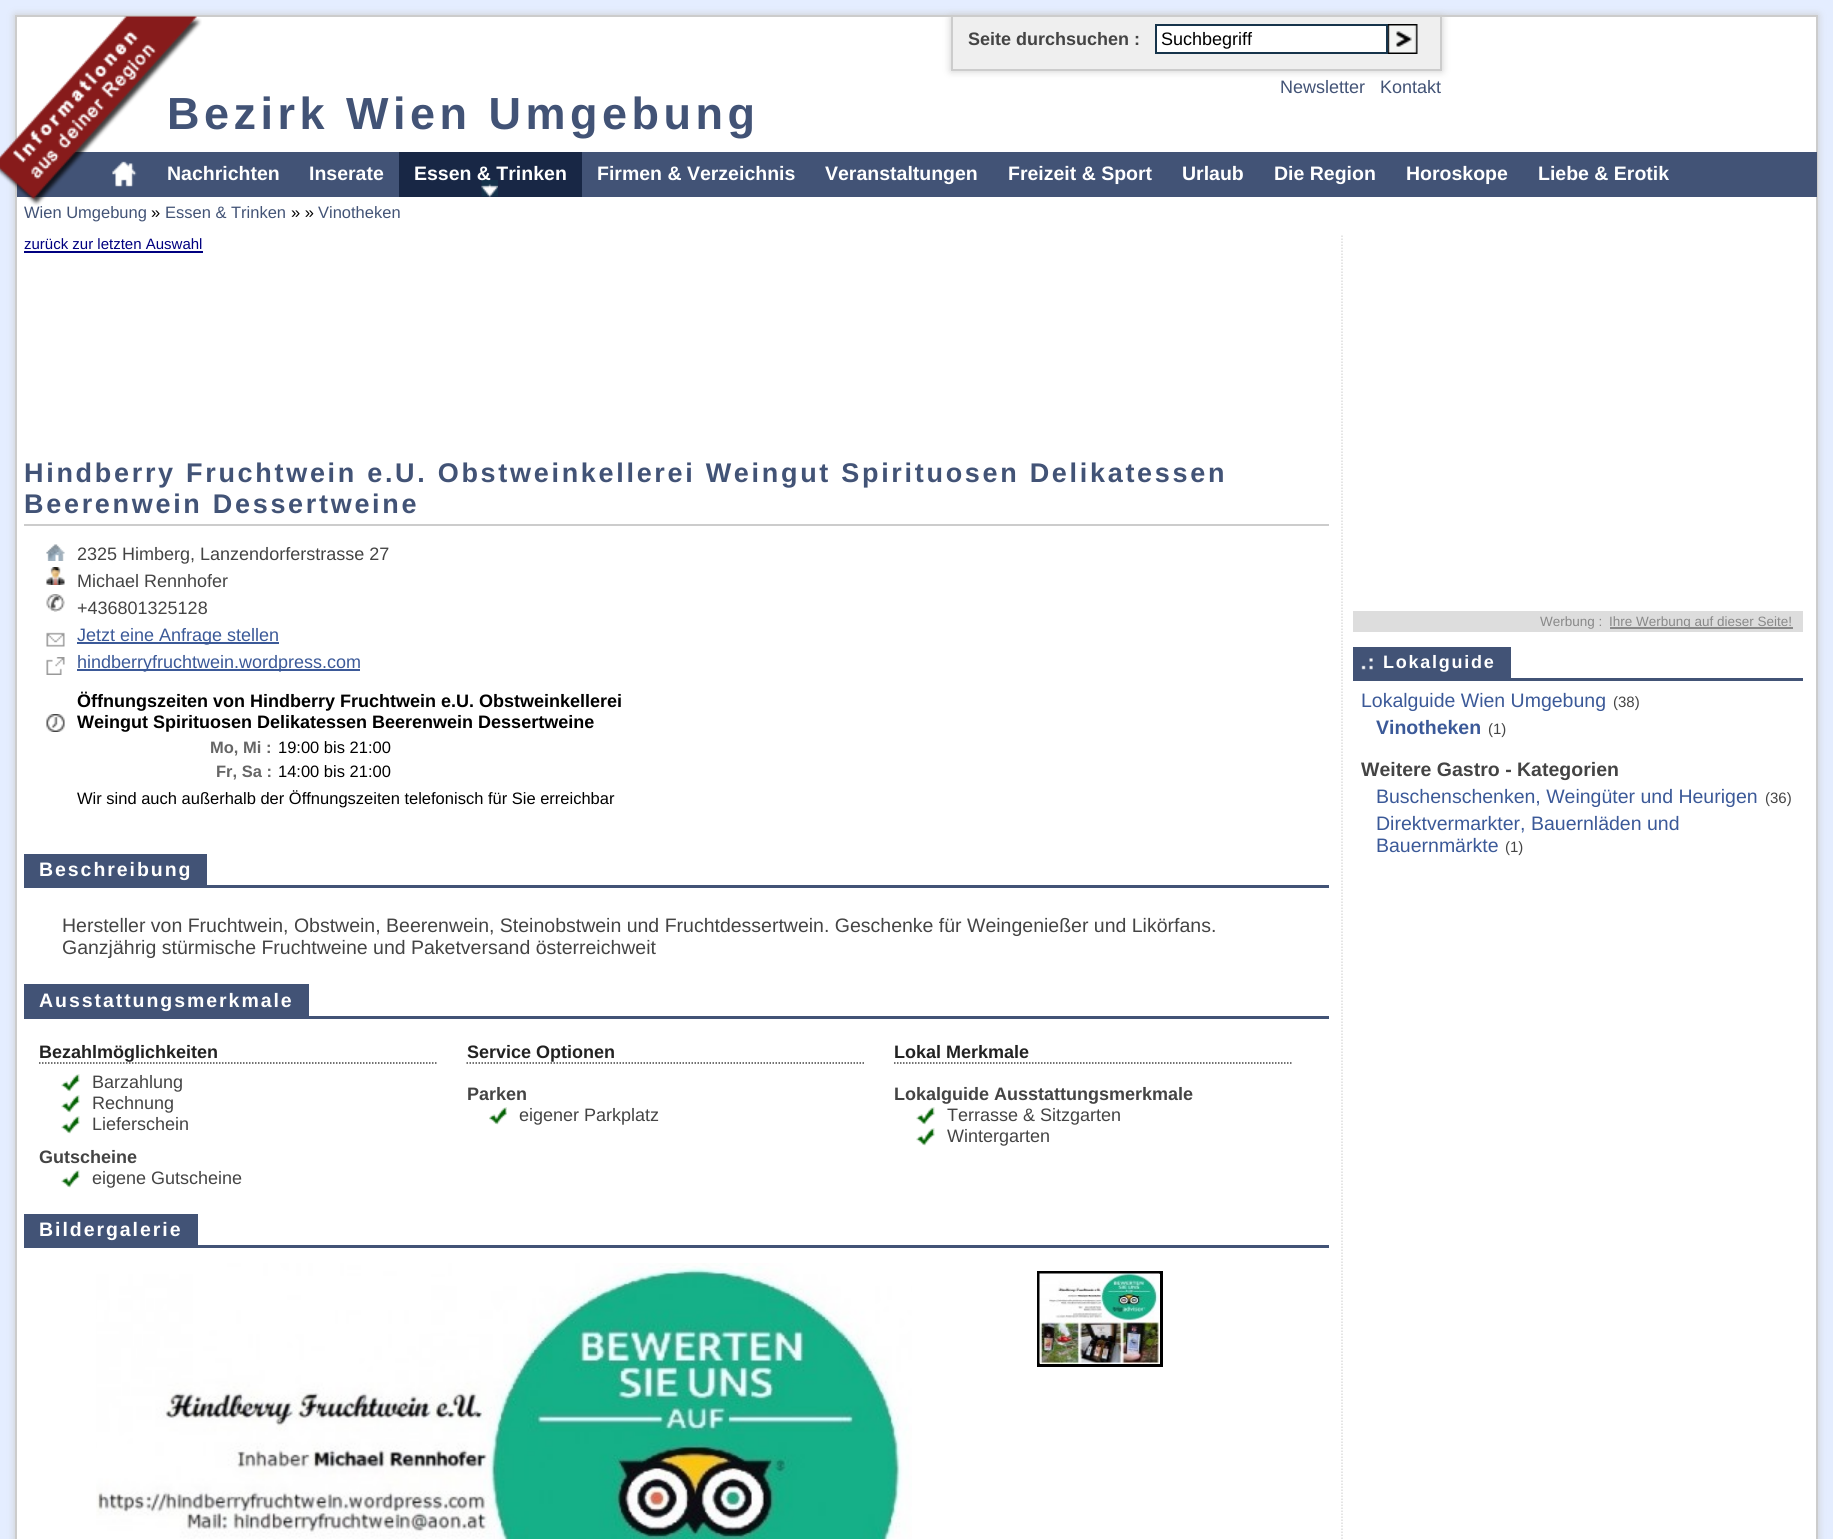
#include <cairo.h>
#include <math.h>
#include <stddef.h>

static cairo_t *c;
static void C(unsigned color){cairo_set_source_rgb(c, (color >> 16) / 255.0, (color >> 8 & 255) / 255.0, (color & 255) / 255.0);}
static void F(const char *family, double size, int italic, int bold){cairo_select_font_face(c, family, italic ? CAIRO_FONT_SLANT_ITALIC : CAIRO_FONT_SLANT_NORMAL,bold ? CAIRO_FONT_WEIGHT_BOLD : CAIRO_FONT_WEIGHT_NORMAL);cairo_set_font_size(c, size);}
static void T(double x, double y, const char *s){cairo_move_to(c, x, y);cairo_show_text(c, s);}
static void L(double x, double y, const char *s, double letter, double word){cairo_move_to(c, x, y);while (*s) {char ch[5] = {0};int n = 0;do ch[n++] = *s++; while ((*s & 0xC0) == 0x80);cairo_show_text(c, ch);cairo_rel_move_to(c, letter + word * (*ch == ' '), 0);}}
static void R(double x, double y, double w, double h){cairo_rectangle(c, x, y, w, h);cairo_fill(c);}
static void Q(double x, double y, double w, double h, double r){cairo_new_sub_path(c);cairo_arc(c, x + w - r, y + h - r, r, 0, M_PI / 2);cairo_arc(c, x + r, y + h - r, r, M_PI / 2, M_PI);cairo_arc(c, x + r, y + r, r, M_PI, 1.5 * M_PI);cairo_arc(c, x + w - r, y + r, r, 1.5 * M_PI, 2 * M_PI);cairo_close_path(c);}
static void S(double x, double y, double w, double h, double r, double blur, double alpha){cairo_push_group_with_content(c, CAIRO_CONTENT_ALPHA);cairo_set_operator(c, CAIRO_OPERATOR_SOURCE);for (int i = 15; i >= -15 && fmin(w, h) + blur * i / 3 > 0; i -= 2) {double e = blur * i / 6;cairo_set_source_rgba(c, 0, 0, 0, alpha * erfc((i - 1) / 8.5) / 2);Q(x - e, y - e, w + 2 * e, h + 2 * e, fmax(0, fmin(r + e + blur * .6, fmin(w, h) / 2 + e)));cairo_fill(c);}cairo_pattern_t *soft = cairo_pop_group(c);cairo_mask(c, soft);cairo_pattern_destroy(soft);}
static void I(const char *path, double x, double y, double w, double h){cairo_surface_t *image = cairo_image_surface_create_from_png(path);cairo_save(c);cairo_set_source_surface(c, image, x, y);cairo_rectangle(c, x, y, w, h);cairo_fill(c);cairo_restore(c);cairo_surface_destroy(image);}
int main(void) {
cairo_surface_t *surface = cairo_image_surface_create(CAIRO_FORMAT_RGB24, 1833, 1539);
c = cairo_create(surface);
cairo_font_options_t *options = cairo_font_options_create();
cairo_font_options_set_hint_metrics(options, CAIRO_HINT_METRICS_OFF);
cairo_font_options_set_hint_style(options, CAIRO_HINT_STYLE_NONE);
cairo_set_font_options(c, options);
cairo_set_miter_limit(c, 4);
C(0xe4edff);
cairo_paint(c);
C(0xcccccc);
S(15,15,1803,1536,0,4,1);
C(0xffffff);
cairo_rectangle(c,16,16,1801,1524);
cairo_fill_preserve(c);
C(0xcccccc);
cairo_stroke(c);
F("Liberation Sans",45,0,1);
C(0x425376);
L(167,129,"Bezirk Wien Umgebung",4.5,0);
R(17,152,1800,45);
I("3.png",112,161,25,26);
F("Liberation Sans",19.5,0,1);
C(0xffffff);
T(167,180,"Nachrichten");
I("1.png",0,16,202,190);
C(0xcccccc);
S(951,17,491,54,0,4,1);
C(0xefefef);
R(953,17,487,52);
C(0xcccccc);
R(1440,17,2,54);
R(951,69,491,2);
R(951,17,2,54);
F("Liberation Sans",18,0,1);
C(0x444444);
T(968,45,"Seite durchsuchen :");
C(0xffffff);
cairo_rectangle(c,1156,25,231,28);
cairo_fill_preserve(c);
C(0x16344b);
cairo_stroke(c);
F("Liberation Sans",18,0,0);
C(0x000000);
T(1161,45,"Suchbegriff");
I("2.png",1388,24,30,30);
C(0x425376);
T(1280,93,"Newsletter");
T(1380,93,"Kontakt");
F("Liberation Sans",19.5,0,1);
C(0xffffff);
T(309,180,"Inserate");
C(0x182745);
R(399,152,183,45);
I("4.png",481,180,17,17);
C(0xffffff);
T(414,180,"Essen & Trinken");
T(597,180,"Firmen & Verzeichnis");
T(825,180,"Veranstaltungen");
T(1008,180,"Freizeit & Sport");
T(1182,180,"Urlaub");
T(1274,180,"Die Region");
T(1406,180,"Horoskope");
T(1538,180,"Liebe & Erotik");
F("Liberation Sans",16.5,0,0);
C(0x425376);
T(24,218,"Wien Umgebung");
C(0x000000);
T(151,218,"»");
C(0x425376);
T(165,218,"Essen & Trinken");
C(0x000000);
T(291,218,"» »");
C(0x425376);
T(318,218,"Vinotheken");
F("Liberation Sans",15,0,0);
C(0x000080);
T(24,249,"zurück zur letzten Auswahl");
R(24,251,179,2);
C(0xcccccc);
R(24,524,1305,2);
F("Liberation Sans",27,0,1);
C(0x425376);
L(24,482,"Hindberry Fruchtwein e.U. Obstweinkellerei Weingut Spirituosen Delikatessen",2.7,0);
L(24,513,"Beerenwein Dessertweine",2.7,0);
I("5.png",46,544,19,17);
F("Liberation Sans",18,0,0);
C(0x444444);
T(77,560,"2325 Himberg, Lanzendorferstrasse 27");
I("6.png",46,567,19,18);
T(77,587,"Michael Rennhofer");
I("7.png",46,594,19,18);
T(77,614,"+436801325128");
I("8.png",46,632,19,15);
C(0x3b5998);
R(77,642,202,2);
T(77,641,"Jetzt eine Anfrage stellen");
I("9.png",46,657,19,18);
R(77,669,283,2);
T(77,668,"hindberryfruchtwein.wordpress.com");
I("10.png",46,714,19,18);
F("Liberation Sans",18,0,1);
C(0x000000);
T(77,707,"Öffnungszeiten von Hindberry Fruchtwein e.U. Obstweinkellerei");
T(77,728,"Weingut Spirituosen Delikatessen Beerenwein Dessertweine");
F("Liberation Sans",16.5,0,1);
C(0x666666);
T(210,753,"Mo, Mi :");
F("Liberation Sans",16.5,0,0);
C(0x000000);
T(278,753,"19:00 bis 21:00");
F("Liberation Sans",16.5,0,1);
C(0x666666);
T(216,777,"Fr, Sa :");
F("Liberation Sans",16.5,0,0);
C(0x000000);
T(278,777,"14:00 bis 21:00");
T(77,804,"Wir sind auch außerhalb der Öffnungszeiten telefonisch für Sie erreichbar");
C(0x425376);
R(24,885,1305,3);
R(24,854,183,31);
F("Liberation Sans",19.5,0,1);
C(0xffffff);
L(39,876,"Beschreibung",1.95,0);
F("Liberation Sans",19.5,0,0);
C(0x444444);
T(62,932,"Hersteller von Fruchtwein, Obstwein, Beerenwein, Steinobstwein und Fruchtdessertwein. Geschenke für Weingenießer und Likörfans.");
T(62,954,"Ganzjährig stürmische Fruchtweine und Paketversand österreichweit");
C(0x425376);
R(24,1016,1305,3);
R(24,984,285,32);
F("Liberation Sans",19.5,0,1);
C(0xffffff);
L(39,1007,"Ausstattungsmerkmale",1.95,0);
cairo_new_path(c);
cairo_move_to(c,39,1063);
cairo_line_to(c,436.5,1063);
C(0x444444);
cairo_set_line_width(c,1.5);
cairo_set_dash(c,(double[]){1.5,1.5},2,0);
cairo_stroke(c);
F("Liberation Sans",18,0,1);
C(0x222222);
T(39,1058,"Bezahlmöglichkeiten");
I("11.png",61,1074,19,18);
F("Liberation Sans",18,0,0);
C(0x444444);
T(92,1088,"Barzahlung");
I("11.png",61,1095,19,18);
T(92,1109,"Rechnung");
I("11.png",61,1116,19,18);
T(92,1130,"Lieferschein");
F("Liberation Sans",18,0,1);
T(39,1163,"Gutscheine");
I("11.png",61,1170,19,18);
F("Liberation Sans",18,0,0);
T(92,1184,"eigene Gutscheine");
cairo_new_path(c);
cairo_move_to(c,466.5,1063);
cairo_line_to(c,864,1063);
cairo_stroke(c);
F("Liberation Sans",18,0,1);
C(0x222222);
T(467,1058,"Service Optionen");
C(0x444444);
T(467,1100,"Parken");
I("12.png",489,1107,18,18);
F("Liberation Sans",18,0,0);
T(519,1121,"eigener Parkplatz");
cairo_new_path(c);
cairo_move_to(c,894,1063);
cairo_line_to(c,1291.5,1063);
cairo_stroke(c);
F("Liberation Sans",18,0,1);
C(0x222222);
T(894,1058,"Lokal Merkmale");
C(0x444444);
T(894,1100,"Lokalguide Ausstattungsmerkmale");
I("11.png",916,1107,19,18);
F("Liberation Sans",18,0,0);
T(947,1121,"Terrasse & Sitzgarten");
I("11.png",916,1128,19,18);
T(947,1142,"Wintergarten");
C(0x425376);
R(24,1245,1305,3);
R(24,1214,174,31);
F("Liberation Sans",19.5,0,1);
C(0xffffff);
L(39,1236,"Bildergalerie",1.95,0);
I("13.png",96,1263,816,276);
cairo_rectangle(c,1038.5,1272.5,123,93);
C(0x000000);
cairo_set_line_width(c,3);
cairo_set_dash(c,NULL,0,0);
cairo_stroke(c);
I("14.png",1039,1273,121,91);
cairo_new_path(c);
cairo_move_to(c,1342,235.5);
cairo_line_to(c,1342,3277.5);
C(0xdddddd);
cairo_set_line_width(c,1.5);
cairo_set_dash(c,(double[]){1.5,1.5},2,0);
cairo_stroke(c);
R(1353,611,450,21);
F("Liberation Sans",13.5,0,0);
C(0x888888);
T(1540,626,"Werbung :");
R(1610,627,183,2);
T(1609,626,"Ihre Werbung auf dieser Seite!");
C(0x425376);
R(1511,678,292,3);
R(1353,647,158,34);
I("15.png",1361,658,12,12);
F("Liberation Sans",18,0,1);
C(0xffffff);
L(1383,668,"Lokalguide",1.75,0);
F("Liberation Sans",19.5,0,0);
C(0x3b5998);
T(1361,707,"Lokalguide Wien Umgebung");
F("Liberation Sans",15,0,0);
C(0x444444);
T(1613,707,"(38)");
F("Liberation Sans",19.5,0,1);
C(0x3b5998);
T(1376,734,"Vinotheken");
F("Liberation Sans",15,0,0);
C(0x444444);
T(1488,734,"(1)");
F("Liberation Sans",19.5,0,1);
T(1361,776,"Weitere Gastro - Kategorien");
F("Liberation Sans",19.5,0,0);
C(0x3b5998);
T(1376,803,"Buschenschenken, Weingüter und Heurigen");
F("Liberation Sans",15,0,0);
C(0x444444);
T(1765,803,"(36)");
F("Liberation Sans",19.5,0,0);
C(0x3b5998);
T(1376,830,"Direktvermarkter, Bauernläden und");
T(1376,852,"Bauernmärkte");
F("Liberation Sans",15,0,0);
C(0x444444);
T(1505,852,"(1)");
cairo_surface_write_to_png(surface, "o.png");
cairo_font_options_destroy(options);
cairo_destroy(c);
cairo_surface_destroy(surface);
return 0;
}
